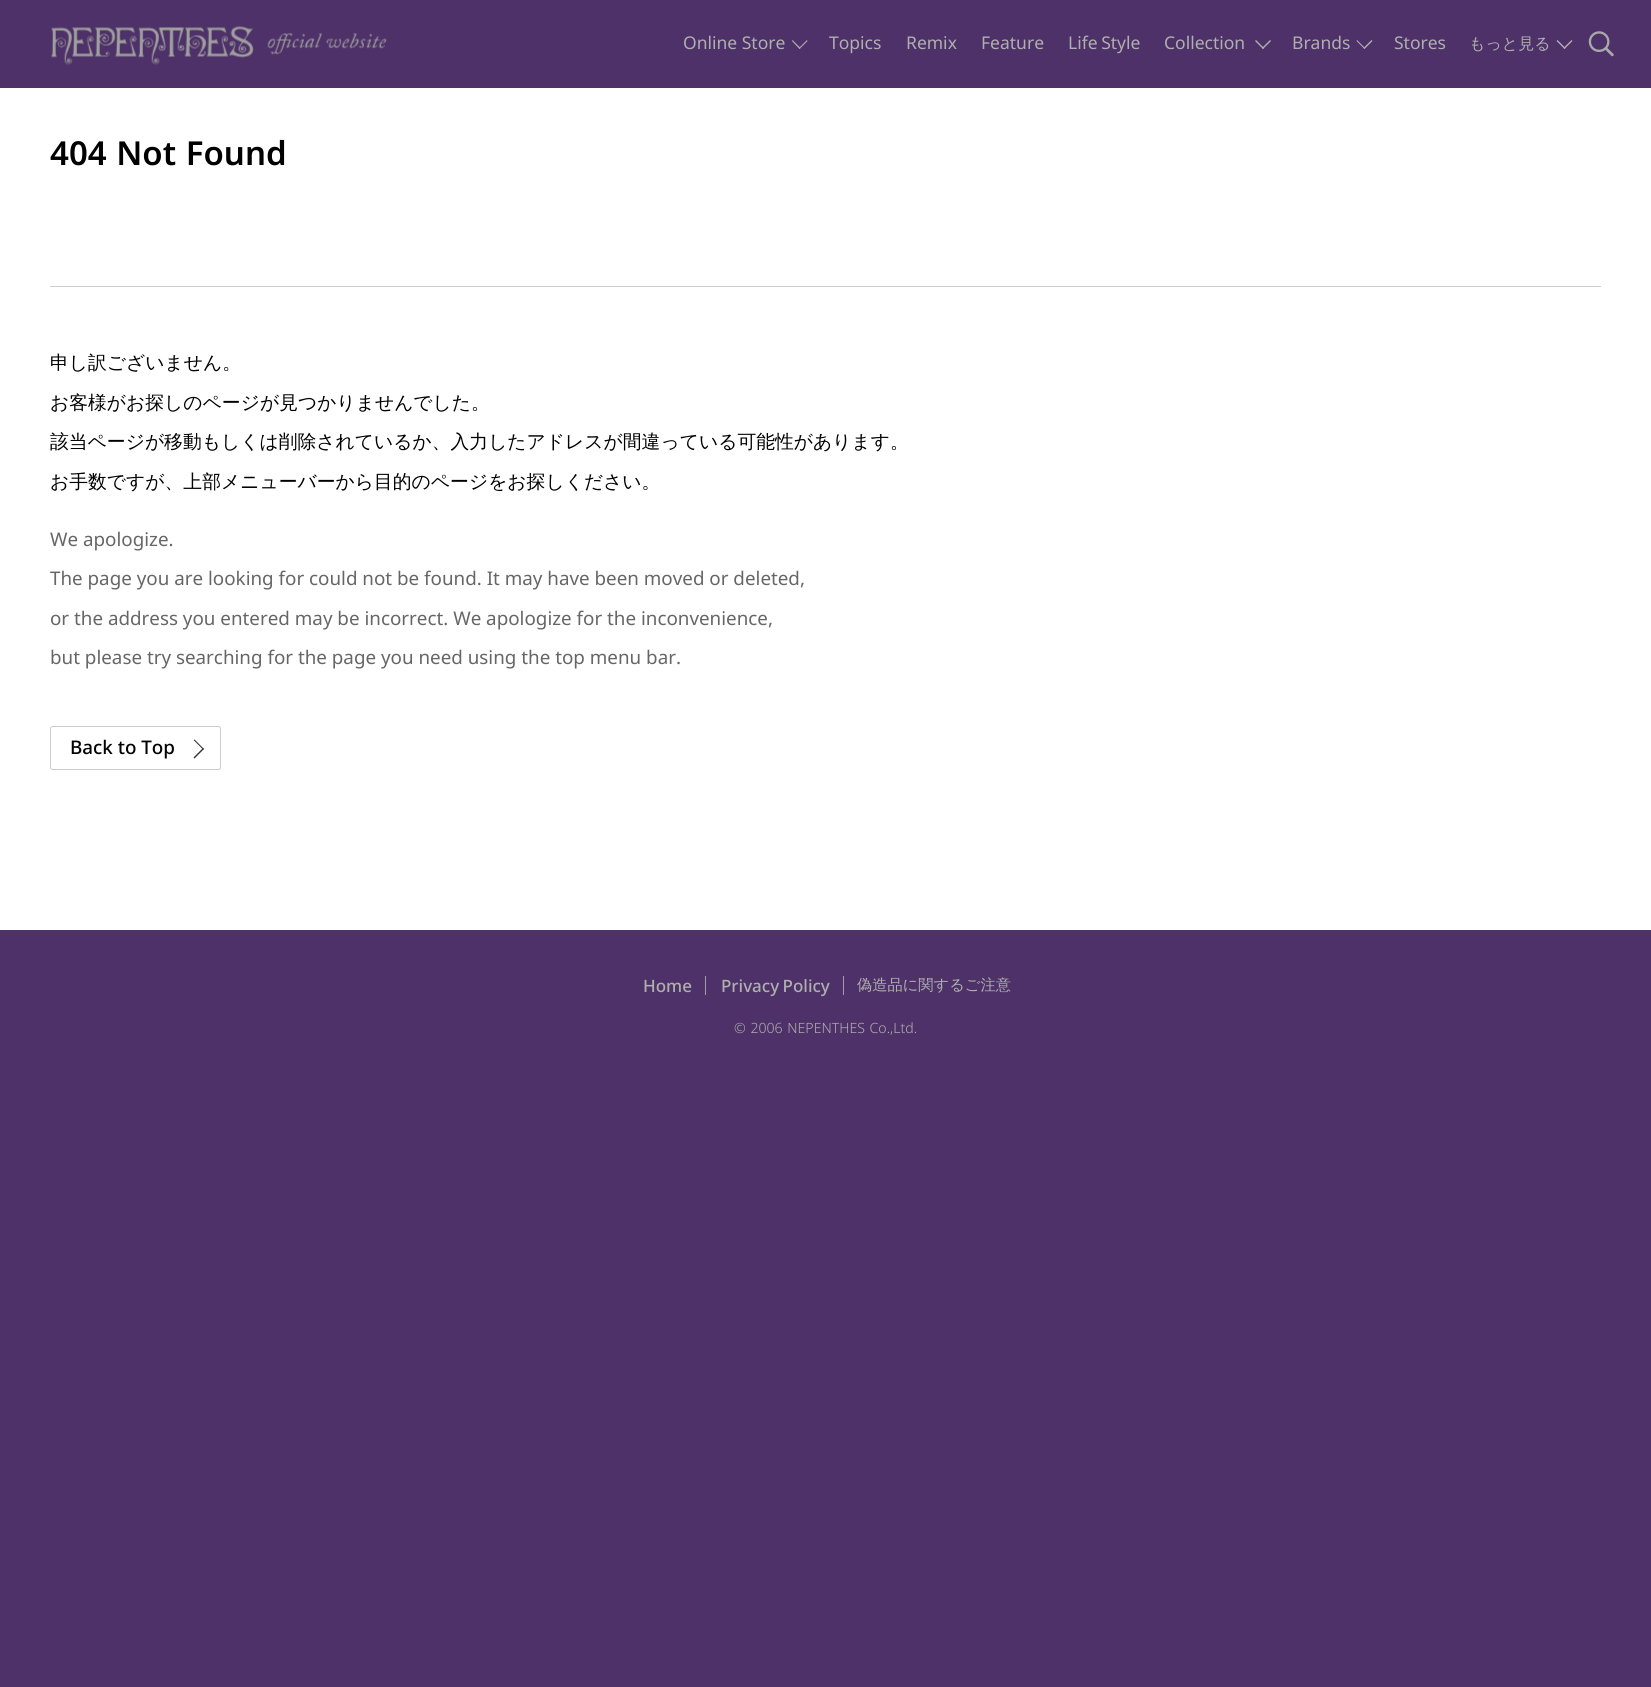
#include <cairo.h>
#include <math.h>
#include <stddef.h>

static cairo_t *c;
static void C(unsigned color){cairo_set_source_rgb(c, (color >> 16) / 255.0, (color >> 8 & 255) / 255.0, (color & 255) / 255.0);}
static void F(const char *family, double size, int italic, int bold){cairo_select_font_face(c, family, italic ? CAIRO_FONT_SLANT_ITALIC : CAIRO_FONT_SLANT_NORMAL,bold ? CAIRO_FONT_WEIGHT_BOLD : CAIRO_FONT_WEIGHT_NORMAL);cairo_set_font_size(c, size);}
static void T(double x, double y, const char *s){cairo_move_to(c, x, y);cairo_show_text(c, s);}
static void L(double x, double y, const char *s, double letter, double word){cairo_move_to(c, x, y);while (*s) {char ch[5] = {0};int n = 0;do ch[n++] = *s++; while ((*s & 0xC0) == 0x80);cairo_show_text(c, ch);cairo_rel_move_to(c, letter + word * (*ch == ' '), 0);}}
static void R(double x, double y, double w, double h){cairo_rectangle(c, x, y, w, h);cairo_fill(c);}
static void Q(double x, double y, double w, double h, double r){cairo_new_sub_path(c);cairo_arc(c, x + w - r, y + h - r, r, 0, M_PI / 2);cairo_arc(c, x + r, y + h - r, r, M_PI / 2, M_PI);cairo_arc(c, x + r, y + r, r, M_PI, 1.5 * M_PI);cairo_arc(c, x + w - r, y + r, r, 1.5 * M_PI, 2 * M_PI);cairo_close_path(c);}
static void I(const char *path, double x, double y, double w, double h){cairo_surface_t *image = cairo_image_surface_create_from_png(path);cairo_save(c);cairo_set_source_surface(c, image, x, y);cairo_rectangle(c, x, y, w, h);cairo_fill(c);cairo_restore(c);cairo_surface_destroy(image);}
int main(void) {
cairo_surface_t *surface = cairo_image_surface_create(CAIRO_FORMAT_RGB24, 1651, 1687);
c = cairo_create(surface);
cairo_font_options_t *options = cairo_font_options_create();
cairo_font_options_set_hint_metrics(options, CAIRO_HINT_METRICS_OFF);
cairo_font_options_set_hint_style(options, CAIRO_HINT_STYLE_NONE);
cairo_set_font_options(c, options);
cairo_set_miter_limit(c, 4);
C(0x4e3168);
cairo_paint(c);
I("1.png",51,26,336,39);
F("Noto Sans",17.5,0,0);
C(0xafafaf);
T(683,49,"Online Store");
cairo_new_path(c);
cairo_move_to(c,807.5,41);
cairo_line_to(c,799.5,49);
cairo_line_to(c,799,48);
cairo_line_to(c,807,40);
cairo_close_path(c);
cairo_fill(c);
cairo_new_path(c);
cairo_move_to(c,800.5,48);
cairo_line_to(c,799.5,49);
cairo_line_to(c,792,41);
cairo_line_to(c,792.5,40);
cairo_close_path(c);
cairo_fill(c);
T(829,49,"Topics");
T(906,49,"Remix");
T(981,49,"Feature");
L(1068,49,"Life Style",0,-1);
T(1164,49,"Collection");
cairo_new_path(c);
cairo_move_to(c,1271,41);
cairo_line_to(c,1263,49);
cairo_line_to(c,1262,48);
cairo_line_to(c,1270,40);
cairo_close_path(c);
cairo_fill(c);
cairo_new_path(c);
cairo_move_to(c,1264,48);
cairo_line_to(c,1263,49);
cairo_line_to(c,1255,41);
cairo_line_to(c,1256,40);
cairo_close_path(c);
cairo_fill(c);
T(1292,49,"Brands");
cairo_new_path(c);
cairo_move_to(c,1372.5,41);
cairo_line_to(c,1364.5,49);
cairo_line_to(c,1363.5,48);
cairo_line_to(c,1371.5,40);
cairo_close_path(c);
cairo_fill(c);
cairo_new_path(c);
cairo_move_to(c,1365,48);
cairo_line_to(c,1364.5,49);
cairo_line_to(c,1356.5,41);
cairo_line_to(c,1357,40);
cairo_close_path(c);
cairo_fill(c);
T(1394,49,"Stores");
F("WenQuanYi Zen Hei Medium",16,0,0);
T(1469,49,"もっと見る");
cairo_new_path(c);
cairo_move_to(c,1572.5,41);
cairo_line_to(c,1564.5,49);
cairo_line_to(c,1563.5,48);
cairo_line_to(c,1571.5,40);
cairo_close_path(c);
cairo_fill(c);
cairo_new_path(c);
cairo_move_to(c,1565.5,48);
cairo_line_to(c,1564.5,49);
cairo_line_to(c,1556.5,41);
cairo_line_to(c,1557.5,40);
cairo_close_path(c);
cairo_fill(c);
I("2.png",1588,31,26,26);
C(0xffffff);
R(0,88,1651,842);
F("Noto Sans SemiBold",33,0,0);
C(0x000000);
L(50,165,"404 Not Found",0,1);
C(0xcccccc);
R(50,286,1551,1);
F("WenQuanYi Zen Hei Medium",18.8,0,0);
C(0x000000);
T(50,369,"申し訳ございません。");
T(50,409,"お客様がお探しのページが見つかりませんでした。");
T(50,448,"該当ページが移動もしくは削除されているか、入力したアドレスが間違っている可能性があります。");
T(50,488,"お手数ですが、上部メニューバーから目的のページをお探しください。");
F("Noto Sans",18.8,0,0);
C(0x666666);
T(50,546,"We apologize.");
T(50,585,"The page you are looking for could not be found. It may have been moved or deleted,");
T(50,625,"or the address you entered may be incorrect. We apologize for the inconvenience,");
T(50,664,"but please try searching for the page you need using the top menu bar.");
Q(50.5,726.5,170,43,2);
C(0xcccccc);
cairo_set_line_width(c,1);
cairo_stroke(c);
F("Noto Sans Medium",18.8,0,0);
C(0x000000);
T(70,754,"Back to Top");
C(0x333333);
cairo_new_path(c);
cairo_move_to(c,194.5,739.5);
cairo_line_to(c,204,749);
cairo_line_to(c,203,749.5);
cairo_line_to(c,193.5,740);
cairo_close_path(c);
cairo_fill(c);
cairo_new_path(c);
cairo_move_to(c,203,748);
cairo_line_to(c,204,749);
cairo_line_to(c,194.5,758.5);
cairo_line_to(c,193.5,757.5);
cairo_close_path(c);
cairo_fill(c);
C(0xa798b4);
R(705,976,1,19);
F("Noto Sans Medium",17,0,0);
C(0xafafaf);
T(643,992,"Home");
C(0xa798b4);
R(843,976,1,19);
C(0xafafaf);
L(721,992,"Privacy Policy",0,-1);
F("WenQuanYi Zen Hei Medium",15.25,0,0);
T(857,990,"偽造品に関するご注意");
F("Noto Sans Light",14.1,0,0);
L(734,1033,"© 2006 NEPENTHES Co.,Ltd.",0,1);
cairo_surface_write_to_png(surface, "o.png");
cairo_font_options_destroy(options);
cairo_destroy(c);
cairo_surface_destroy(surface);
return 0;
}
